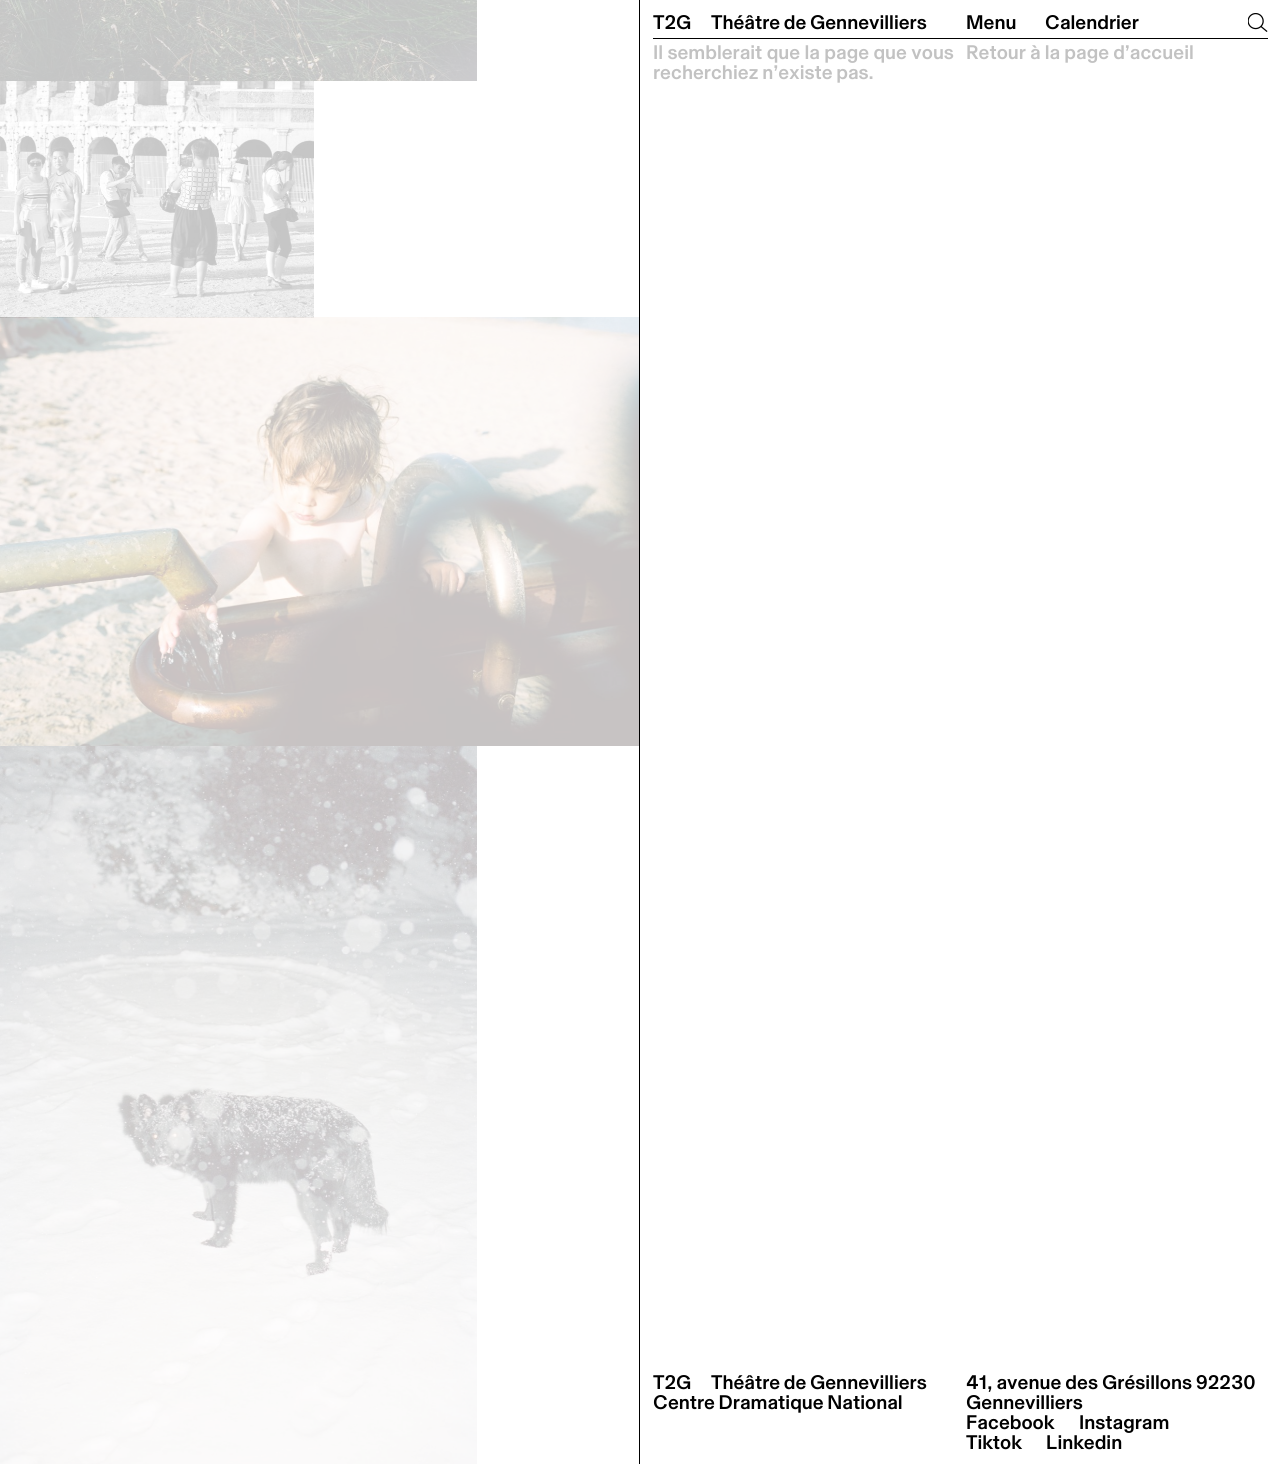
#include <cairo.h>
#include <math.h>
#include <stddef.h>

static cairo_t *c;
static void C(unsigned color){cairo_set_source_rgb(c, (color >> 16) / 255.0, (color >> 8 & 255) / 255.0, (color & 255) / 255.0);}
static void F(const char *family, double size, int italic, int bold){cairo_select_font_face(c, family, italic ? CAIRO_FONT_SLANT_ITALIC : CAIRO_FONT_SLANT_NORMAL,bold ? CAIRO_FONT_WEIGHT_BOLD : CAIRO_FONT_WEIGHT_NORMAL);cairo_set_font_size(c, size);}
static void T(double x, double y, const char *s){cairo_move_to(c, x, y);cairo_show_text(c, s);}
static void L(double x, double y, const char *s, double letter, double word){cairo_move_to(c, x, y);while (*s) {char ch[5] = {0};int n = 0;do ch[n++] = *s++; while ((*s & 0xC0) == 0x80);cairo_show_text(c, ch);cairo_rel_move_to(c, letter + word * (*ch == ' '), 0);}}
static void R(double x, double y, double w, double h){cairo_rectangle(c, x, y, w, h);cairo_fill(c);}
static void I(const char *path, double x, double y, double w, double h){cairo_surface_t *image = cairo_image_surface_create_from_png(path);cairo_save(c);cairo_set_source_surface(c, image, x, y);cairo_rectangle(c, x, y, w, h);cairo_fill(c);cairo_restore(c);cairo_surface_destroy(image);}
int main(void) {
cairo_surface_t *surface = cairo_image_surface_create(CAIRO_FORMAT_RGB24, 1279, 1464);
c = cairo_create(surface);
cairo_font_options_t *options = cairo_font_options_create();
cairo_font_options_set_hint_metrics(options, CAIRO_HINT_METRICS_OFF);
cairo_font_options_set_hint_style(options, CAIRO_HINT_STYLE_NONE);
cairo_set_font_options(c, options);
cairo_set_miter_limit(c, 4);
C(0xffffff);
cairo_paint(c);
C(0x000000);
R(639,0,1,1464);
I("1.png",0,0,477,81);
I("2.png",0,81,314,237);
I("3.png",0,317,639,429);
I("4.png",0,746,477,718);
R(653,38,615,1);
F("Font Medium",20,0,0);
T(653,29,"T2G");
L(711,29,"Théâtre de Gennevilliers",0,-1);
T(966,29,"Menu");
T(1045,29,"Calendrier");
I("5.png",1248,13,20,19);
C(0xc2c2c2);
L(653,59,"Il semblerait que la page que vous",0,-.25);
L(653,79,"recherchiez n’existe pas.",0,-1);
L(966,59,"Retour à la page d’accueil",0,-.5);
C(0x000000);
T(653,1389,"T2G");
L(711,1389,"Théâtre de Gennevilliers",0,-1);
L(653,1409,"Centre Dramatique National",0,-1);
L(966,1389,"41, avenue des Grésillons 92230",0,-.5);
T(966,1409,"Gennevilliers");
T(966,1429,"Facebook");
T(1079,1429,"Instagram");
T(966,1449,"Tiktok");
T(1046,1449,"Linkedin");
cairo_surface_write_to_png(surface, "o.png");
cairo_font_options_destroy(options);
cairo_destroy(c);
cairo_surface_destroy(surface);
return 0;
}
